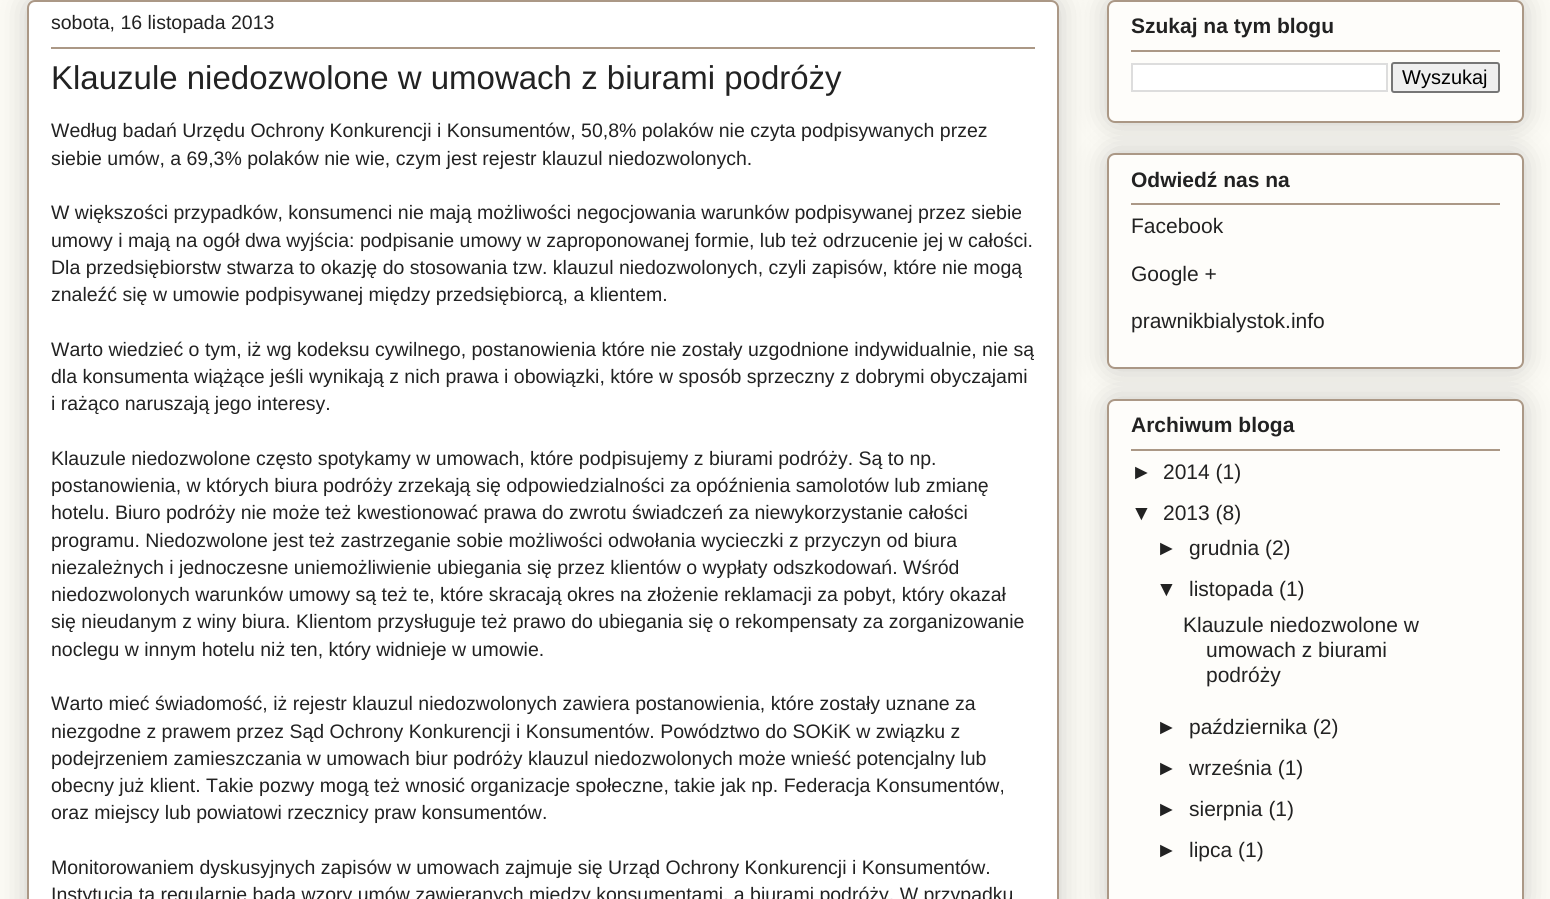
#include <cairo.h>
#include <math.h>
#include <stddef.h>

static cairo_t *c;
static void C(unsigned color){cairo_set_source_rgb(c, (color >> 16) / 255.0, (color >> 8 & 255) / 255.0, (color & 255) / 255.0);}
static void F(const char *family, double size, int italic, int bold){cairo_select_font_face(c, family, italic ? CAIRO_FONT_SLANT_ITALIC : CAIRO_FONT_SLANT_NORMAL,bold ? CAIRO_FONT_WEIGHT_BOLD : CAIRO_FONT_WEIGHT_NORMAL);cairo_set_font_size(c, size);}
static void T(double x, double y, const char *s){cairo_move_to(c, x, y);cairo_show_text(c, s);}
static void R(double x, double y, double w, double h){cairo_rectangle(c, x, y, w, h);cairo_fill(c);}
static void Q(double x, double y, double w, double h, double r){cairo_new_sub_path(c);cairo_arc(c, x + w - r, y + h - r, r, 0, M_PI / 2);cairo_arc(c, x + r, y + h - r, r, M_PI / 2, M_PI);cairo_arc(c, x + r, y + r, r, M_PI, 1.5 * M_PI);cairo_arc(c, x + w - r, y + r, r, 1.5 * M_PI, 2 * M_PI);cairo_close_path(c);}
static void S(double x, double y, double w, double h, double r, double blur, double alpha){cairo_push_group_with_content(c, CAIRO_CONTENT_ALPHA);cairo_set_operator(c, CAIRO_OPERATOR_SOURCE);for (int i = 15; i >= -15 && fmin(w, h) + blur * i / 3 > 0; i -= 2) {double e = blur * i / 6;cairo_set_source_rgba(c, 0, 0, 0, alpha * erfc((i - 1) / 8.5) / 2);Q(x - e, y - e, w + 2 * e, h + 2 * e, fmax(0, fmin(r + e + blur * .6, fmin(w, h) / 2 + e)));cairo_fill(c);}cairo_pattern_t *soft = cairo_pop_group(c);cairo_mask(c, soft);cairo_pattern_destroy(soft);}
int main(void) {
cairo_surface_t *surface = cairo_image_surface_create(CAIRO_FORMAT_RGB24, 1550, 899);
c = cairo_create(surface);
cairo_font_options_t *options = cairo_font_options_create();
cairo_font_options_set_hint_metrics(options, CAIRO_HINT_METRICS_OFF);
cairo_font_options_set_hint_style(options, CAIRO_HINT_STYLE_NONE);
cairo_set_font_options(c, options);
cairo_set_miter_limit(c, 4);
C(0xfcfbf5);
cairo_paint(c);
C(0x000000);
S(27,0,1032,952,8,15,.2);
C(0xffffff);
Q(28,1,1030,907,7);
cairo_fill_preserve(c);
C(0xab9886);
cairo_stroke(c);
F("Liberation Sans",19.5,0,0);
C(0x222222);
T(51,29,"sobota, 16 listopada 2013");
C(0xab9886);
R(51,47,984,2);
F("Liberation Sans",33,0,0);
C(0x222222);
T(51,89,"Klauzule niedozwolone w umowach z biurami podróży");
F("Liberation Sans",19.5,0,0);
T(51,137,"Według badań Urzędu Ochrony Konkurencji i Konsumentów, 50,8% polaków nie czyta podpisywanych przez");
T(51,165,"siebie umów, a 69,3% polaków nie wie, czym jest rejestr klauzul niedozwolonych.");
T(51,219,"W większości przypadków, konsumenci nie mają możliwości negocjowania warunków podpisywanej przez siebie");
T(51,247,"umowy i mają na ogół dwa wyjścia: podpisanie umowy w zaproponowanej formie, lub też odrzucenie jej w całości.");
T(51,274,"Dla przedsiębiorstw stwarza to okazję do stosowania tzw. klauzul niedozwolonych, czyli zapisów, które nie mogą");
T(51,301,"znaleźć się w umowie podpisywanej między przedsiębiorcą, a klientem.");
T(51,356,"Warto wiedzieć o tym, iż wg kodeksu cywilnego, postanowienia które nie zostały uzgodnione indywidualnie, nie są");
T(51,383,"dla konsumenta wiążące jeśli wynikają z nich prawa i obowiązki, które w sposób sprzeczny z dobrymi obyczajami");
T(51,410,"i rażąco naruszają jego interesy.");
T(51,465,"Klauzule niedozwolone często spotykamy w umowach, które podpisujemy z biurami podróży. Są to np.");
T(51,492,"postanowienia, w których biura podróży zrzekają się odpowiedzialności za opóźnienia samolotów lub zmianę");
T(51,519,"hotelu. Biuro podróży nie może też kwestionować prawa do zwrotu świadczeń za niewykorzystanie całości");
T(51,547,"programu. Niedozwolone jest też zastrzeganie sobie możliwości odwołania wycieczki z przyczyn od biura");
T(51,574,"niezależnych i jednoczesne uniemożliwienie ubiegania się przez klientów o wypłaty odszkodowań. Wśród");
T(51,601,"niedozwolonych warunków umowy są też te, które skracają okres na złożenie reklamacji za pobyt, który okazał");
T(51,628,"się nieudanym z winy biura. Klientom przysługuje też prawo do ubiegania się o rekompensaty za zorganizowanie");
T(51,656,"noclegu w innym hotelu niż ten, który widnieje w umowie.");
T(51,710,"Warto mieć świadomość, iż rejestr klauzul niedozwolonych zawiera postanowienia, które zostały uznane za");
T(51,738,"niezgodne z prawem przez Sąd Ochrony Konkurencji i Konsumentów. Powództwo do SOKiK w związku z");
T(51,765,"podejrzeniem zamieszczania w umowach biur podróży klauzul niedozwolonych może wnieść potencjalny lub");
T(51,792,"obecny już klient. Takie pozwy mogą też wnosić organizacje społeczne, takie jak np. Federacja Konsumentów,");
T(51,819,"oraz miejscy lub powiatowi rzecznicy praw konsumentów.");
T(51,874,"Monitorowaniem dyskusyjnych zapisów w umowach zajmuje się Urząd Ochrony Konkurencji i Konsumentów.");
T(51,901,"Instytucja ta regularnie bada wzory umów zawieranych między konsumentami, a biurami podróży. W przypadku");
C(0x000000);
S(1107,0,417,123,8,15,.2);
C(0xfefdfa);
Q(1108,1,415,121,7);
cairo_fill_preserve(c);
C(0xab9886);
cairo_stroke(c);
F("Liberation Sans",21,0,1);
C(0x222222);
T(1131,33,"Szukaj na tym blogu");
C(0xab9886);
R(1131,50,369,2);
C(0xffffff);
cairo_rectangle(c,1132,64,255,27);
cairo_fill_preserve(c);
C(0xdddddd);
cairo_stroke(c);
C(0xefefef);
Q(1392,63,107,29,2);
cairo_fill_preserve(c);
C(0x767676);
cairo_stroke(c);
F("Liberation Sans",20,0,0);
C(0x000000);
T(1402,84,"Wyszukaj");
C(0x000000);
S(1107,153,417,216,8,15,.2);
C(0xfefdfa);
Q(1108,154,415,214,7);
cairo_fill_preserve(c);
C(0xab9886);
cairo_stroke(c);
F("Liberation Sans",21,0,1);
C(0x222222);
T(1131,187,"Odwiedź nas na");
C(0xab9886);
R(1131,203,369,2);
F("Liberation Sans",21,0,0);
C(0x222222);
T(1131,233,"Facebook");
T(1131,281,"Google +");
T(1131,328,"prawnikbialystok.info");
C(0x000000);
S(1107,399,417,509,8,15,.2);
C(0xfefdfa);
Q(1108,400,415,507,7);
cairo_fill_preserve(c);
C(0xab9886);
cairo_stroke(c);
F("Liberation Sans",21,0,1);
C(0x222222);
T(1131,432,"Archiwum bloga");
C(0xab9886);
R(1131,449,369,2);
F("Liberation Sans",21,0,0);
C(0x222222);
T(1131,479,"►");
T(1163,479,"2014 (1)");
T(1131,520,"▼");
T(1163,520,"2013 (8)");
T(1156,555,"►");
T(1189,555,"grudnia (2)");
T(1156,596,"▼");
T(1189,596,"listopada (1)");
T(1183,632,"Klauzule niedozwolone w");
T(1206,657,"umowach z biurami");
T(1206,682,"podróży");
T(1156,734,"►");
T(1189,734,"października (2)");
T(1156,775,"►");
T(1189,775,"września (1)");
T(1156,816,"►");
T(1189,816,"sierpnia (1)");
T(1156,857,"►");
T(1189,857,"lipca (1)");
cairo_surface_write_to_png(surface, "o.png");
cairo_font_options_destroy(options);
cairo_destroy(c);
cairo_surface_destroy(surface);
return 0;
}
